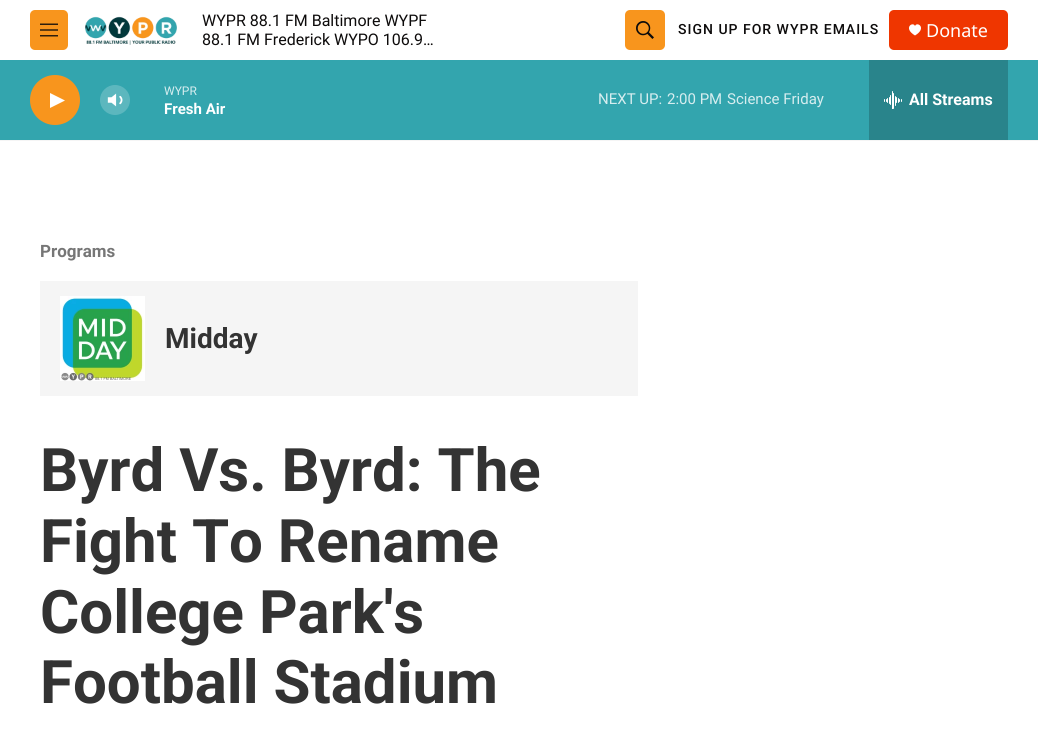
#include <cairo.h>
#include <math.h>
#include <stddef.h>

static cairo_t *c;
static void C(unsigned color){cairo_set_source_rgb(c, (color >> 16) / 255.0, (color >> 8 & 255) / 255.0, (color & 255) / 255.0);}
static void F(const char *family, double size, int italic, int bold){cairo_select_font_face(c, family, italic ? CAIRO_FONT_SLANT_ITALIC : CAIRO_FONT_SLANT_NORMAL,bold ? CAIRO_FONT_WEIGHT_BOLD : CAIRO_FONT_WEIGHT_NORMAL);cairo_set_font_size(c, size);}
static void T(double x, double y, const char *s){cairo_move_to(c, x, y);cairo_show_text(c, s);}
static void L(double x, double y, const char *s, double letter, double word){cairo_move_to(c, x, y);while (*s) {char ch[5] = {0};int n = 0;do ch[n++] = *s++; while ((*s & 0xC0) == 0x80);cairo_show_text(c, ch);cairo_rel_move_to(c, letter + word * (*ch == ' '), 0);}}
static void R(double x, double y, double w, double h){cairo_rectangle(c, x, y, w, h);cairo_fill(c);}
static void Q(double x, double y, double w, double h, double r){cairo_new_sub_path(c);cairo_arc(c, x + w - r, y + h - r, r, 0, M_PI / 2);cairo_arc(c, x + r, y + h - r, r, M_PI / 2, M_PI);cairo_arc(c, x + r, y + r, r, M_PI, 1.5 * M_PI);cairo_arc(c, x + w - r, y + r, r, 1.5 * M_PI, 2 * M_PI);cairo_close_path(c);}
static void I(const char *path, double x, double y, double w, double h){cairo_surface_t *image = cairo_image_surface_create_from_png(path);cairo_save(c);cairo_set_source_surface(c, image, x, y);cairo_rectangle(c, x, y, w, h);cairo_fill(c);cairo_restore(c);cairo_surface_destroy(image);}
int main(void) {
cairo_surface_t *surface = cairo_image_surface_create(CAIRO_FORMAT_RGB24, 1038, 746);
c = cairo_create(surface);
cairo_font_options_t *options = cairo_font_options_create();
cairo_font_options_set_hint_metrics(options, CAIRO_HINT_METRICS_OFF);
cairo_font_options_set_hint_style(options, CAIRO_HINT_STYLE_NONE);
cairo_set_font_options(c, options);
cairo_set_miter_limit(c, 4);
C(0xffffff);
cairo_paint(c);
C(0xf5f5f5);
R(0,140,1038,1);
C(0xf8951d);
Q(30,10,38,40,5);
cairo_fill(c);
I("1.png",40,23,18,14);
I("2.png",85,16,92,29);
F("Roboto",16,0,0);
C(0x0d0b0b);
T(202,26,"WYPR 88.1 FM Baltimore WYPF");
T(202,45,"88.1 FM Frederick WYPO 106.9…");
C(0xf8951d);
Q(625,10,40,40,5);
cairo_fill(c);
I("3.png",636,21,18,18);
F("Roboto Medium",14,0,0);
C(0x0d0b0b);
L(678,34,"SIGN UP FOR WYPR EMAILS",1,0);
C(0xef3600);
Q(889,10,119,40,5);
cairo_fill(c);
C(0xffffff);
cairo_new_path(c);
cairo_move_to(c,915,26);
cairo_curve_to(c,913,21,902.5,28,915,35.5);
cairo_curve_to(c,927.5,28,917,21,915,26);
cairo_close_path(c);
cairo_fill(c);
F("Noto Sans",18,0,0);
T(926,37,"Donate");
C(0x33a5ae);
R(0,60,1038,80);
C(0xf8951d);
cairo_new_path(c);
cairo_arc(c,55,100,25,0,2 * M_PI);
cairo_fill(c);
C(0xffffff);
cairo_new_path(c);
cairo_move_to(c,50,93);
cairo_line_to(c,65,100.5);
cairo_line_to(c,50,108);
cairo_close_path(c);
cairo_fill(c);
I("4.png",107,93,16,14);
cairo_set_source_rgba(c,1,1,1,0.2);
cairo_arc(c,115,100,15,0,2 * M_PI);
cairo_fill(c);
F("Roboto",12,0,0);
C(0xd6edef);
T(164,95,"WYPR");
F("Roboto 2",15,0,1);
C(0xffffff);
T(164,114,"Fresh Air");
F("Roboto",15,0,0);
C(0xd6edef);
T(598,104,"NEXT UP:");
T(667,104,"2:00 PM");
T(727,104,"Science Friday");
C(0x29848b);
R(869,60,139,80);
I("5.png",884,91,18,18);
F("Roboto 2",16,0,1);
C(0xffffff);
T(909,105,"All Streams");
F("Roboto",17,0,1);
C(0x767676);
T(40,257,"Programs");
C(0xf5f5f5);
R(40,281,598,115);
I("6.png",60,296,85,85);
F("Roboto",28,0,1);
C(0x333333);
T(165,348,"Midday");
F("Roboto",60,0,1);
T(40,491,"Byrd Vs. Byrd: The");
T(40,562,"Fight To Rename");
T(40,633,"College Park's");
T(40,703,"Football Stadium");
cairo_surface_write_to_png(surface, "o.png");
cairo_font_options_destroy(options);
cairo_destroy(c);
cairo_surface_destroy(surface);
return 0;
}
